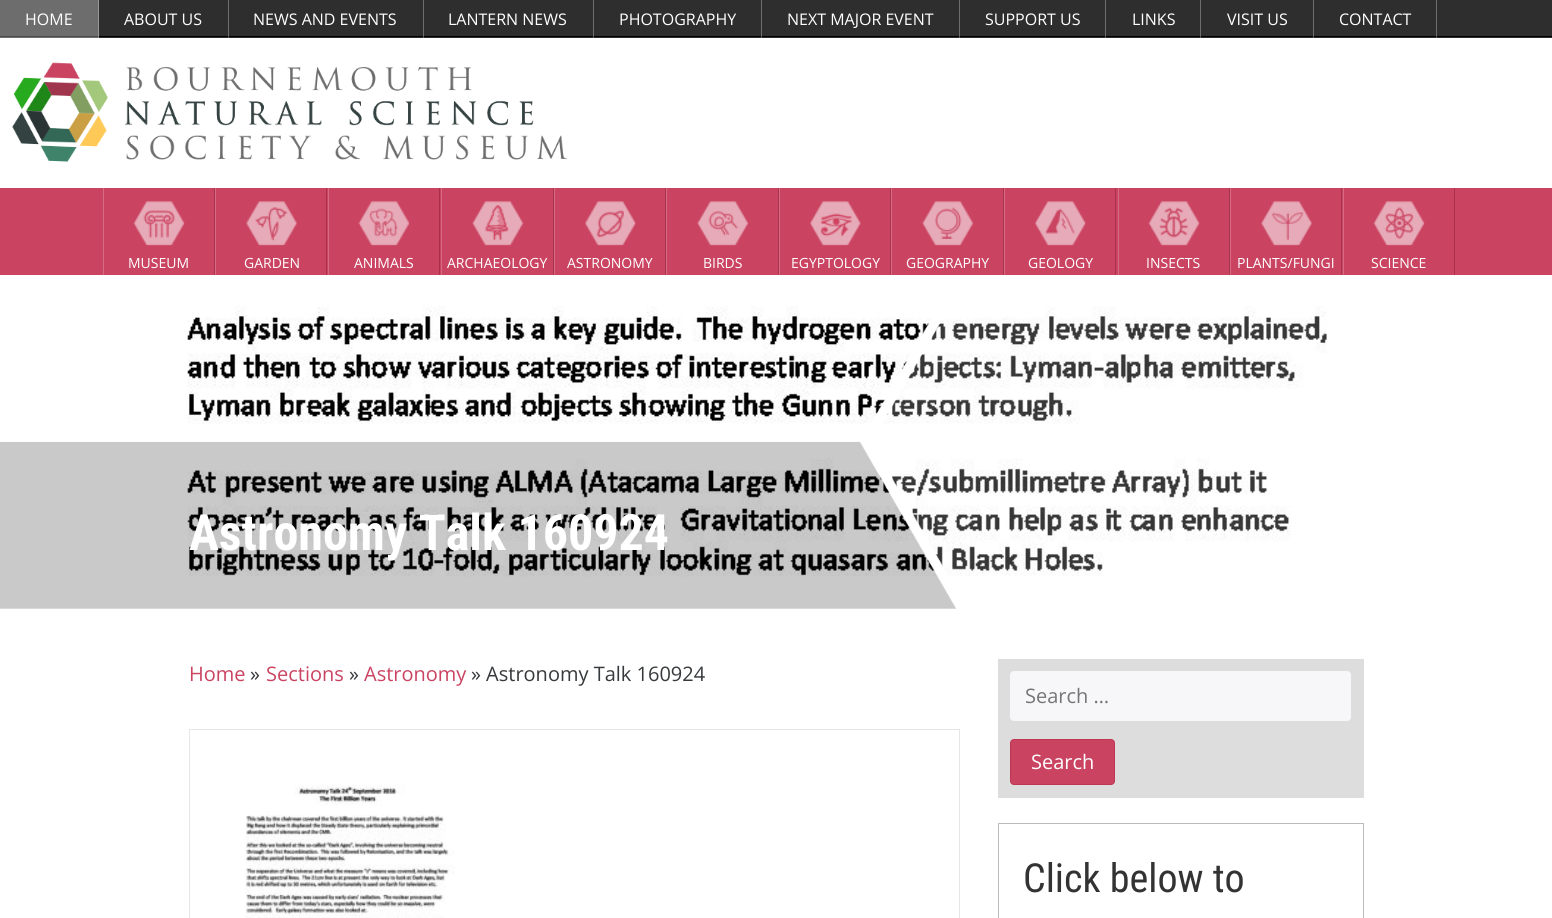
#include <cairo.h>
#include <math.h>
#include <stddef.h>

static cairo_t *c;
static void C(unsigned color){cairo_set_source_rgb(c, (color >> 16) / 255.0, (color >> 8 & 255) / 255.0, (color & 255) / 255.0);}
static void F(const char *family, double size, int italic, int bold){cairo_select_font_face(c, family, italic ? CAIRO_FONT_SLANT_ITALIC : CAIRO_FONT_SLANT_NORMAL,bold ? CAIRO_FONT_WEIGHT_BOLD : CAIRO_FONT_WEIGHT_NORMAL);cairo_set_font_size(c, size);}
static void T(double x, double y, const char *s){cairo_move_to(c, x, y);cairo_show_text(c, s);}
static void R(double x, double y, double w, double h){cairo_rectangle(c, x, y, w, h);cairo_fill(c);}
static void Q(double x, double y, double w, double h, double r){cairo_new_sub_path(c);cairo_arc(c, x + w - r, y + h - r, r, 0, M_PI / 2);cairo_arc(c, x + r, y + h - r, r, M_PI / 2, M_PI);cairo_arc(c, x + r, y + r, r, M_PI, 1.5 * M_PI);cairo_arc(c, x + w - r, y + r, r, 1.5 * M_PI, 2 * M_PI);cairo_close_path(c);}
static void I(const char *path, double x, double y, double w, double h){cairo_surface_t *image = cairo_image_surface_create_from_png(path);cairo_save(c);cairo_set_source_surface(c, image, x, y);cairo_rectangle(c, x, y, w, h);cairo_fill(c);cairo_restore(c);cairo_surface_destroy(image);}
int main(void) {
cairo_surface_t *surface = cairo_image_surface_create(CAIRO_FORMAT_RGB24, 1552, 918);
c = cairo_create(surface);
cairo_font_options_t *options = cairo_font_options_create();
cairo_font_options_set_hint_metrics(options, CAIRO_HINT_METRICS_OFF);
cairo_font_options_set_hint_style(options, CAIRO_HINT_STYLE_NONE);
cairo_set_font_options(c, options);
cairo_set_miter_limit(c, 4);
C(0xffffff);
cairo_paint(c);
C(0x2e2e2e);
R(99,0,1453,38);
C(0x6d6d6d);
R(1436,0,1,38);
R(1313,0,1,38);
R(1200,0,1,38);
R(1105,0,1,38);
R(959,0,1,38);
R(761,0,1,38);
R(593,0,1,38);
R(423,0,1,38);
R(228,0,1,38);
R(0,0,98,38);
C(0x999999);
R(98,0,1,38);
C(0x000000);
R(99,36,1453,1);
C(0x4d4d4d);
R(1436,36,1,1);
R(1313,36,1,1);
R(1200,36,1,1);
R(1105,36,1,1);
R(959,36,1,1);
R(761,36,1,1);
R(593,36,1,1);
R(423,36,1,1);
R(228,36,1,1);
R(0,36,99,1);
C(0x828282);
R(98,36,1,1);
F("Open Sans",16,0,0);
C(0xffffff);
T(25,25,"HOME");
T(124,25,"ABOUT US");
T(253,25,"NEWS AND EVENTS");
T(448,25,"LANTERN NEWS");
T(619,25,"PHOTOGRAPHY");
T(787,25,"NEXT MAJOR EVENT");
T(985,25,"SUPPORT US");
T(1132,25,"LINKS");
T(1227,25,"VISIT US");
T(1339,25,"CONTACT");
I("1.png",12,62,556,100);
C(0xca4462);
R(0,188,1552,87);
I("2.png",133,201,52,45);
C(0xab304c);
R(214,188,1,87);
C(0xd56c83);
R(103,188,1,87);
F("Open Sans",14,0,0);
C(0xffffff);
T(128,268,"MUSEUM");
I("3.png",246,201,52,45);
C(0xab304c);
R(326,188,1,87);
C(0xd56c83);
R(215,188,1,87);
C(0xffffff);
T(244,268,"GARDEN");
I("4.png",358,201,52,45);
C(0xab304c);
R(439,188,1,87);
C(0xd56c83);
R(328,188,1,87);
C(0xffffff);
T(354,268,"ANIMALS");
I("5.png",472,201,52,45);
C(0xab304c);
R(553,188,1,87);
C(0xd56c83);
R(441,188,1,87);
C(0xffffff);
T(447,268,"ARCHAEOLOGY");
I("6.png",585,201,51,45);
C(0xab304c);
R(665,188,1,87);
C(0xd56c83);
R(554,188,1,87);
C(0xffffff);
T(567,268,"ASTRONOMY");
I("7.png",697,201,52,45);
C(0xab304c);
R(778,188,1,87);
C(0xd56c83);
R(666,188,1,87);
C(0xffffff);
T(703,268,"BIRDS");
I("8.png",810,201,51,45);
C(0xab304c);
R(890,188,1,87);
C(0xd56c83);
R(779,188,1,87);
C(0xffffff);
T(791,268,"EGYPTOLOGY");
I("9.png",922,201,52,45);
C(0xab304c);
R(1003,188,1,87);
C(0xd56c83);
R(891,188,1,87);
C(0xffffff);
T(906,268,"GEOGRAPHY");
I("10.png",1035,201,51,45);
C(0xab304c);
R(1115,188,1,87);
C(0xd56c83);
R(1004,188,1,87);
C(0xffffff);
T(1028,268,"GEOLOGY");
I("11.png",1148,201,52,45);
C(0xab304c);
R(1229,188,1,87);
C(0xd56c83);
R(1118,188,1,87);
C(0xffffff);
T(1146,268,"INSECTS");
I("12.png",1261,201,52,45);
C(0xab304c);
R(1341,188,1,87);
C(0xd56c83);
R(1230,188,1,87);
C(0xffffff);
T(1237,268,"PLANTS/FUNGI");
I("13.png",1373,201,52,45);
C(0xab304c);
R(1454,188,1,87);
C(0xd56c83);
R(1343,188,1,87);
C(0xffffff);
T(1371,268,"SCIENCE");
I("14.png",0,306,1327,303);
F("Roboto Condensed",50,0,1);
T(189,550,"Astronomy Talk 160924");
F("Open Sans",20,0,0);
C(0xca4462);
T(189,681,"Home");
C(0x373a3c);
T(250,681,"»");
C(0xca4462);
T(266,681,"Sections");
C(0x373a3c);
T(349,681,"»");
C(0xca4462);
T(364,681,"Astronomy");
C(0x373a3c);
T(471,681,"» Astronomy Talk 160924");
cairo_rectangle(c,189.5,729.5,770,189);
C(0xe6e6e6);
cairo_set_line_width(c,1);
cairo_stroke(c);
I("15.png",245,785,210,133);
C(0xdddddd);
R(998,659,366,139);
C(0xf7f7f9);
Q(1010,671,341,50,4);
cairo_fill(c);
C(0x757575);
T(1025,703,"Search …");
C(0xca4462);
Q(1010.5,739.5,104,45,3.5);
cairo_fill_preserve(c);
C(0xbf3655);
cairo_stroke(c);
C(0xffffff);
T(1031,769,"Search");
cairo_rectangle(c,998.5,823.5,365,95);
C(0xbbbbbb);
cairo_stroke(c);
F("Roboto Condensed",40,0,0);
C(0x333333);
T(1023,892,"Click below to");
cairo_surface_write_to_png(surface, "o.png");
cairo_font_options_destroy(options);
cairo_destroy(c);
cairo_surface_destroy(surface);
return 0;
}
